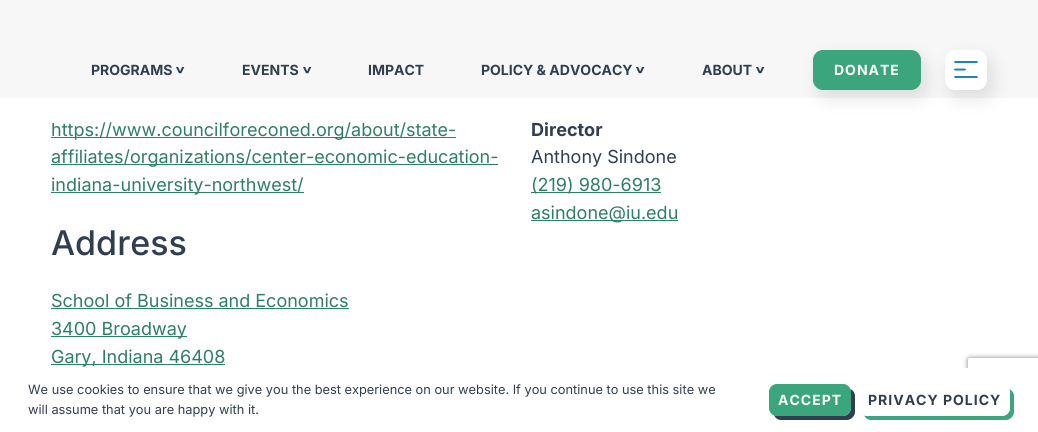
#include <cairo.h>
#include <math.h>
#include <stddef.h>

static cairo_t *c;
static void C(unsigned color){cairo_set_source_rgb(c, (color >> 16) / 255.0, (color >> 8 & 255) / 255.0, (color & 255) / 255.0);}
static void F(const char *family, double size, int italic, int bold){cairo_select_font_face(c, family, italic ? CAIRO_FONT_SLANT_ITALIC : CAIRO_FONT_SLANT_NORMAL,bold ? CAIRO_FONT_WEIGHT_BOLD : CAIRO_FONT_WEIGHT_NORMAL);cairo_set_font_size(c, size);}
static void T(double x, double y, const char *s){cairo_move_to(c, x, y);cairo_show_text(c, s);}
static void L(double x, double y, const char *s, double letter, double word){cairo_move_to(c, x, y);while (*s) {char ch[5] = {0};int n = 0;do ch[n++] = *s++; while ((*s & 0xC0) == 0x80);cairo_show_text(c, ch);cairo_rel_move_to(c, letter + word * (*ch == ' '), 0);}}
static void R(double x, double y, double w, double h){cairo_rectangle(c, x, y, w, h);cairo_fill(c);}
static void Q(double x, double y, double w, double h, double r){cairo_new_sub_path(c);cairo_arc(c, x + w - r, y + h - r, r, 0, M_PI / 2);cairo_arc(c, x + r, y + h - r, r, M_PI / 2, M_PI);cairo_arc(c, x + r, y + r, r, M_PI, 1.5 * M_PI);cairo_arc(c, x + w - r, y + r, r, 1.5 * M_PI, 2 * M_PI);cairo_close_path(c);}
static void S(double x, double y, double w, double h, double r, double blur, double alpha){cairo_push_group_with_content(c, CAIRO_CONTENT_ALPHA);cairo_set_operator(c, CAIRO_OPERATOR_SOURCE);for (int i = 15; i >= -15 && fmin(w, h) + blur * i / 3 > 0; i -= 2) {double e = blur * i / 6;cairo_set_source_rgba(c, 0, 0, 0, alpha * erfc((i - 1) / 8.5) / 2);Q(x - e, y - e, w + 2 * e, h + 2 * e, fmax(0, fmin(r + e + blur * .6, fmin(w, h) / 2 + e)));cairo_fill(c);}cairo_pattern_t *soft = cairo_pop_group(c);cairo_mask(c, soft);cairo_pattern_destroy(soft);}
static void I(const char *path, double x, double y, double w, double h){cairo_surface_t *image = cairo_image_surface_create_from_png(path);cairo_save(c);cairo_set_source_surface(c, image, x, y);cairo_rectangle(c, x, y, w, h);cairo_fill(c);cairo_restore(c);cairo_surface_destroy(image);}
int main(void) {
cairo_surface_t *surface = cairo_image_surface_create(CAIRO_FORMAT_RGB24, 1038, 432);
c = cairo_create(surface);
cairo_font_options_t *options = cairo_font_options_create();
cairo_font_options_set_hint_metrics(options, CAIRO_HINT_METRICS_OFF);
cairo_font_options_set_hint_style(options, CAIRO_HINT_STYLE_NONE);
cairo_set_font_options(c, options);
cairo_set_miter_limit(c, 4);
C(0xffffff);
cairo_paint(c);
C(0xf7f7f7);
R(0,0,1038,98);
F("Inter",14,0,1);
C(0x313e50);
T(91,75,"PROGRAMS");
F("Inter",20,0,1);
cairo_save(c);
cairo_translate(c,185,59);
cairo_rotate(c,180 * M_PI / 180);
T(0,0,"^");
cairo_restore(c);
F("Inter",14,0,1);
T(242,75,"EVENTS");
F("Inter",20,0,1);
cairo_save(c);
cairo_translate(c,312,59);
cairo_rotate(c,180 * M_PI / 180);
T(0,0,"^");
cairo_restore(c);
F("Inter",14,0,1);
T(368,75,"IMPACT");
T(481,75,"POLICY & ADVOCACY");
F("Inter",20,0,1);
cairo_save(c);
cairo_translate(c,645,59);
cairo_rotate(c,180 * M_PI / 180);
T(0,0,"^");
cairo_restore(c);
F("Inter",14,0,1);
T(702,75,"ABOUT");
F("Inter",20,0,1);
cairo_save(c);
cairo_translate(c,765,59);
cairo_rotate(c,180 * M_PI / 180);
T(0,0,"^");
cairo_restore(c);
C(0x000000);
S(818,58,108,40,10,9,.11);
C(0x3ba57e);
Q(813.5,50.5,107,39,9.5);
cairo_fill_preserve(c);
cairo_set_line_width(c,1);
cairo_stroke(c);
F("Inter",14,0,1);
C(0xffffff);
L(834,75,"DONATE",1,0);
C(0x000000);
S(950,58,42,40,10,9,.11);
C(0xffffff);
Q(945.5,50.5,41,39,9.5);
cairo_fill_preserve(c);
cairo_stroke(c);
I("1.png",954,61,24,17);
C(0x2e7f63);
R(51,137,405,1);
F("Inter",18,0,0);
T(51,136,"https://www.councilforeconed.org/about/state-");
R(51,164,447,1);
T(51,163,"affiliates/organizations/center-economic-education-");
R(51,192,253,1);
T(51,191,"indiana-university-northwest/");
F("Inter Medium",34,0,0);
C(0x313e50);
T(51,255,"Address");
F("Inter",18,0,0);
C(0x2e7f63);
T(51,307,"School of Business and Economics");
R(51,308,298,1);
R(51,336,136,1);
T(51,335,"3400 Broadway");
R(51,364,174,1);
T(51,363,"Gary, Indiana 46408");
F("Inter",18,0,1);
C(0x313e50);
T(531,136,"Director");
F("Inter",18,0,0);
T(531,163,"Anthony Sindone");
C(0x2e7f63);
R(531,192,130,1);
T(531,191,"(219) 980-6913");
R(531,220,147,1);
T(531,219,"asindone@iu.edu");
cairo_save(c);
cairo_set_fill_rule(c,CAIRO_FILL_RULE_EVEN_ODD);
cairo_new_path(c);
cairo_move_to(c,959,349);
cairo_line_to(c,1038,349);
cairo_line_to(c,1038,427);
cairo_line_to(c,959,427);
cairo_close_path(c);
cairo_move_to(c,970,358);
cairo_line_to(c,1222,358);
cairo_curve_to(c,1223,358,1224,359,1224,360);
cairo_line_to(c,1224,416);
cairo_curve_to(c,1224,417,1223,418,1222,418);
cairo_line_to(c,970,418);
cairo_curve_to(c,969,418,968,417,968,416);
cairo_line_to(c,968,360);
cairo_curve_to(c,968,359,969,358,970,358);
cairo_close_path(c);
cairo_clip(c);
C(0x808080);
S(968,358,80,60,2,2.5,1);
cairo_restore(c);
C(0xffffff);
R(963,368,75,55);
F("Inter",12.8,0,0);
C(0x313e50);
T(28,394,"We use cookies to ensure that we give you the best experience on our website. If you continue to use this site we");
T(28,414,"will assume that you are happy with it.");
cairo_new_path(c);
cairo_move_to(c,774,415);
cairo_curve_to(c,775,418,778,420,781,420);
cairo_line_to(c,847,420);
cairo_curve_to(c,851,420,855,416,855,412);
cairo_line_to(c,855,396);
cairo_curve_to(c,855,393,853,390,850,389);
cairo_line_to(c,851,392);
cairo_line_to(c,851,408);
cairo_curve_to(c,851,412,847,416,843,416);
cairo_line_to(c,777,416);
cairo_close_path(c);
cairo_fill(c);
C(0x3ba57e);
Q(769.5,384.5,81,31,7.5);
cairo_fill_preserve(c);
cairo_stroke(c);
F("Inter",14,0,1);
C(0xffffff);
L(778,405,"ACCEPT",1,0);
C(0x3ba57e);
cairo_new_path(c);
cairo_move_to(c,864,415);
cairo_curve_to(c,865,418,868,420,871,420);
cairo_line_to(c,1006,420);
cairo_curve_to(c,1010,420,1014,416,1014,412);
cairo_line_to(c,1014,396);
cairo_curve_to(c,1014,393,1012,390,1009,389);
cairo_line_to(c,1010,392);
cairo_line_to(c,1010,408);
cairo_curve_to(c,1010,412,1006,416,1002,416);
cairo_line_to(c,867,416);
cairo_close_path(c);
cairo_fill(c);
C(0xffffff);
Q(859.5,384.5,150,31,7.5);
cairo_fill_preserve(c);
cairo_stroke(c);
C(0x313e50);
L(868,405,"PRIVACY POLICY",1,0);
cairo_surface_write_to_png(surface, "o.png");
cairo_font_options_destroy(options);
cairo_destroy(c);
cairo_surface_destroy(surface);
return 0;
}
